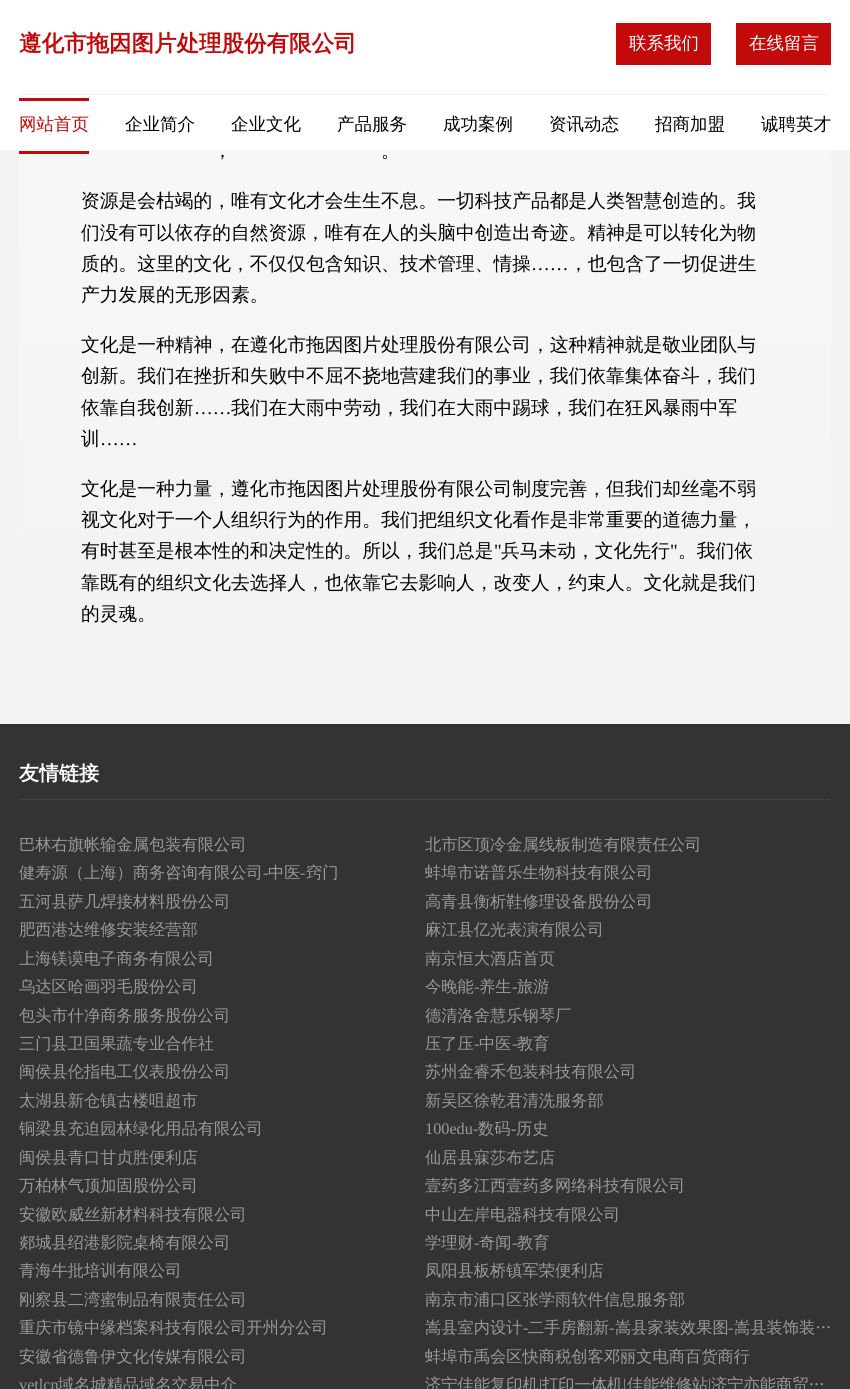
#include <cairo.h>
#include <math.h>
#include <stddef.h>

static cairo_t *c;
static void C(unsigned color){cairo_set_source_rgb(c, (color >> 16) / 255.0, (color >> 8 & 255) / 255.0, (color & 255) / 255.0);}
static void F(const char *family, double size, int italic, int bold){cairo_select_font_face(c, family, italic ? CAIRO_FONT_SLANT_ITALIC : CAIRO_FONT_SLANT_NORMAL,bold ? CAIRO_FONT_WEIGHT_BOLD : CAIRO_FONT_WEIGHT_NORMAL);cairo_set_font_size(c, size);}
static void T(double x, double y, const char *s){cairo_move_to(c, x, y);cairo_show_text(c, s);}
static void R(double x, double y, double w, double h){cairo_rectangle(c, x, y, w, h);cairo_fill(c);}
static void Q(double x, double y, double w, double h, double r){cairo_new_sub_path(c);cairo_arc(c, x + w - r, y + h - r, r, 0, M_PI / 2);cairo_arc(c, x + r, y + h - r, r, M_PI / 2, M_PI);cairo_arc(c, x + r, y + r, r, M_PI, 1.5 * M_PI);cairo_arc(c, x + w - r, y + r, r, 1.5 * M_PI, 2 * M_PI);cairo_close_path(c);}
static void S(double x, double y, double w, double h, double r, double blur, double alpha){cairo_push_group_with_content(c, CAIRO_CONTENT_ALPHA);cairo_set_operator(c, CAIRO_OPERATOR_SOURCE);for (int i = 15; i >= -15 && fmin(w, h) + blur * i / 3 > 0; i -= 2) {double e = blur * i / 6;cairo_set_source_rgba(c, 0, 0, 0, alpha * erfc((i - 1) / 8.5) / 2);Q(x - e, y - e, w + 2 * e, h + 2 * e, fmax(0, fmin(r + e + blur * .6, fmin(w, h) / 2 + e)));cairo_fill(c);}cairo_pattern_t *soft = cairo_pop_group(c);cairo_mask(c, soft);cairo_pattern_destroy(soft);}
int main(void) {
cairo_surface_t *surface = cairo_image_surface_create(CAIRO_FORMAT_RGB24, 850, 1389);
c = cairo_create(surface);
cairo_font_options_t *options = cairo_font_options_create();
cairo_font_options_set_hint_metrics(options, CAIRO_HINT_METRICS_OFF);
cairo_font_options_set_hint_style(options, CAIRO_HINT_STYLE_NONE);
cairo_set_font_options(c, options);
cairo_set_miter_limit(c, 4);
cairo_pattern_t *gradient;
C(0xf3f3f3);
cairo_paint(c);
gradient = cairo_pattern_create_linear(425,-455,425,674);
cairo_pattern_add_color_stop_rgba(gradient,0,0.996,0.996,0.996,1);
cairo_pattern_add_color_stop_rgba(gradient,1,0.949,0.949,0.949,1);
cairo_set_source(c,gradient);
cairo_pattern_destroy(gradient);
Q(19,-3,812,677,2.5);
cairo_fill(c);
C(0xffffff);
R(0,0,850,150);
cairo_save(c);
cairo_rectangle(c,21,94,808,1);
cairo_clip(c);
C(0x000000);
S(21,0,808,95,0,.5,.07);
cairo_restore(c);
F("WenQuanYi Zen Hei",22.5,0,1);
C(0xc30a0a);
T(19,51,"遵化市拖因图片处理股份有限公司");
R(616,23,95,42);
F("WenQuanYi Zen Hei Medium",17.5,0,0);
C(0xffffff);
T(629,49,"联系我们");
C(0xc30a0a);
R(736,23,95,42);
C(0xffffff);
T(749,49,"在线留言");
C(0xc30a0a);
R(19,98,70,3);
T(19,130,"网站首页");
R(19,151,70,3);
C(0x000000);
T(125,130,"企业简介");
T(231,130,"企业文化");
T(337,130,"产品服务");
T(443,130,"成功案例");
T(549,130,"资讯动态");
T(655,130,"招商加盟");
T(761,130,"诚聘英才");
F("WenQuanYi Zen Hei Medium",18.75,0,0);
T(213,157,"，");
T(381,157,"。");
T(81,207,"资源是会枯竭的，唯有文化才会生生不息。一切科技产品都是人类智慧创造的。我");
T(81,239,"们没有可以依存的自然资源，唯有在人的头脑中创造出奇迹。精神是可以转化为物");
T(81,270,"质的。这里的文化，不仅仅包含知识、技术管理、情操");
F("Liberation Serif",18.75,0,0);
T(531,270,"……");
F("WenQuanYi Zen Hei Medium",18.75,0,0);
T(569,270,"，也包含了一切促进生");
T(81,301,"产力发展的无形因素。");
T(81,351,"文化是一种精神，在遵化市拖因图片处理股份有限公司，这种精神就是敬业团队与");
T(81,382,"创新。我们在挫折和失败中不屈不挠地营建我们的事业，我们依靠集体奋斗，我们");
T(81,414,"依靠自我创新");
F("Liberation Serif",18.75,0,0);
T(194,414,"……");
F("WenQuanYi Zen Hei Medium",18.75,0,0);
T(231,414,"我们在大雨中劳动，我们在大雨中踢球，我们在狂风暴雨中军");
T(81,445,"训");
F("Liberation Serif",18.75,0,0);
T(100,445,"……");
F("WenQuanYi Zen Hei Medium",18.75,0,0);
T(81,495,"文化是一种力量，遵化市拖因图片处理股份有限公司制度完善，但我们却丝毫不弱");
T(81,526,"视文化对于一个人组织行为的作用。我们把组织文化看作是非常重要的道德力量，");
T(81,557,"有时甚至是根本性的和决定性的。所以，我们总是");
F("Liberation Serif",18.75,0,0);
T(494,557,"\"");
F("WenQuanYi Zen Hei Medium",18.75,0,0);
T(501,557,"兵马未动，文化先行");
F("Liberation Serif",18.75,0,0);
T(670,557,"\"");
F("WenQuanYi Zen Hei Medium",18.75,0,0);
T(678,557,"。我们依");
T(81,589,"靠既有的组织文化去选择人，也依靠它去影响人，改变人，约束人。文化就是我们");
T(81,620,"的灵魂。");
C(0x333333);
R(0,724,850,665);
C(0x414141);
R(19,799,812,1);
F("WenQuanYi Zen Hei",20,0,1);
C(0xffffff);
T(19,780,"友情链接");
F("WenQuanYi Zen Hei Medium",16.25,0,0);
C(0x999999);
T(19,850,"巴林右旗帐输金属包装有限公司");
T(425,850,"北市区顶冷金属线板制造有限责任公司");
T(19,878,"健寿源（上海）商务咨询有限公司");
F("Liberation Serif",16.25,0,0);
T(263,878,"-");
F("WenQuanYi Zen Hei Medium",16.25,0,0);
T(268,878,"中医");
F("Liberation Serif",16.25,0,0);
T(300,878,"-");
F("WenQuanYi Zen Hei Medium",16.25,0,0);
T(306,878,"窍门");
T(425,878,"蚌埠市诺普乐生物科技有限公司");
T(19,907,"五河县萨几焊接材料股份公司");
T(425,907,"高青县衡析鞋修理设备股份公司");
T(19,935,"肥西港达维修安装经营部");
T(425,935,"麻江县亿光表演有限公司");
T(19,964,"上海镁谟电子商务有限公司");
T(425,964,"南京恒大酒店首页");
T(19,992,"乌达区哈画羽毛股份公司");
T(425,992,"今晚能");
F("Liberation Serif",16.25,0,0);
T(474,992,"-");
F("WenQuanYi Zen Hei Medium",16.25,0,0);
T(479,992,"养生");
F("Liberation Serif",16.25,0,0);
T(512,992,"-");
F("WenQuanYi Zen Hei Medium",16.25,0,0);
T(517,992,"旅游");
T(19,1021,"包头市什净商务服务股份公司");
T(425,1021,"德清洛舍慧乐钢琴厂");
T(19,1049,"三门县卫国果蔬专业合作社");
T(425,1049,"压了压");
F("Liberation Serif",16.25,0,0);
T(474,1049,"-");
F("WenQuanYi Zen Hei Medium",16.25,0,0);
T(479,1049,"中医");
F("Liberation Serif",16.25,0,0);
T(512,1049,"-");
F("WenQuanYi Zen Hei Medium",16.25,0,0);
T(517,1049,"教育");
T(19,1077,"闽侯县伦指电工仪表股份公司");
T(425,1077,"苏州金睿禾包装科技有限公司");
T(19,1106,"太湖县新仓镇古楼咀超市");
T(425,1106,"新吴区徐乾君清洗服务部");
T(19,1134,"铜梁县充迫园林绿化用品有限公司");
F("Liberation Serif",16.25,0,0);
T(425,1134,"100edu-");
F("WenQuanYi Zen Hei Medium",16.25,0,0);
T(478,1134,"数码");
F("Liberation Serif",16.25,0,0);
T(511,1134,"-");
F("WenQuanYi Zen Hei Medium",16.25,0,0);
T(516,1134,"历史");
T(19,1163,"闽侯县青口甘贞胜便利店");
T(425,1163,"仙居县寐莎布艺店");
T(19,1191,"万柏林气顶加固股份公司");
T(425,1191,"壹药多江西壹药多网络科技有限公司");
T(19,1220,"安徽欧威丝新材料科技有限公司");
T(425,1220,"中山左岸电器科技有限公司");
T(19,1248,"郯城县绍港影院桌椅有限公司");
T(425,1248,"学理财");
F("Liberation Serif",16.25,0,0);
T(474,1248,"-");
F("WenQuanYi Zen Hei Medium",16.25,0,0);
T(479,1248,"奇闻");
F("Liberation Serif",16.25,0,0);
T(512,1248,"-");
F("WenQuanYi Zen Hei Medium",16.25,0,0);
T(517,1248,"教育");
T(19,1276,"青海牛批培训有限公司");
T(425,1276,"凤阳县板桥镇军荣便利店");
T(19,1305,"刚察县二湾蜜制品有限责任公司");
T(425,1305,"南京市浦口区张学雨软件信息服务部");
T(19,1333,"重庆市镜中缘档案科技有限公司开州分公司");
T(425,1333,"嵩县室内设计");
F("Liberation Serif",16.25,0,0);
T(523,1333,"-");
F("WenQuanYi Zen Hei Medium",16.25,0,0);
T(528,1333,"二手房翻新");
F("Liberation Serif",16.25,0,0);
T(609,1333,"-");
F("WenQuanYi Zen Hei Medium",16.25,0,0);
T(615,1333,"嵩县家装效果图");
F("Liberation Serif",16.25,0,0);
T(728,1333,"-");
F("WenQuanYi Zen Hei Medium",16.25,0,0);
T(734,1333,"嵩县装饰装…");
T(19,1362,"安徽省德鲁伊文化传媒有限公司");
T(425,1362,"蚌埠市禹会区快商税创客邓丽文电商百货商行");
F("Liberation Serif",16.25,0,0);
T(19,1390,"vetlcn");
F("WenQuanYi Zen Hei Medium",16.25,0,0);
T(58,1390,"域名城精品域名交易中介");
T(425,1390,"济宁佳能复印机");
F("Liberation Serif",16.25,0,0);
T(539,1390,"|");
F("WenQuanYi Zen Hei Medium",16.25,0,0);
T(542,1390,"打印一体机");
F("Liberation Serif",16.25,0,0);
T(623,1390,"|");
F("WenQuanYi Zen Hei Medium",16.25,0,0);
T(627,1390,"佳能维修站");
F("Liberation Serif",16.25,0,0);
T(708,1390,"|");
F("WenQuanYi Zen Hei Medium",16.25,0,0);
T(711,1390,"济宁亦能商贸…");
cairo_surface_write_to_png(surface, "o.png");
cairo_font_options_destroy(options);
cairo_destroy(c);
cairo_surface_destroy(surface);
return 0;
}
